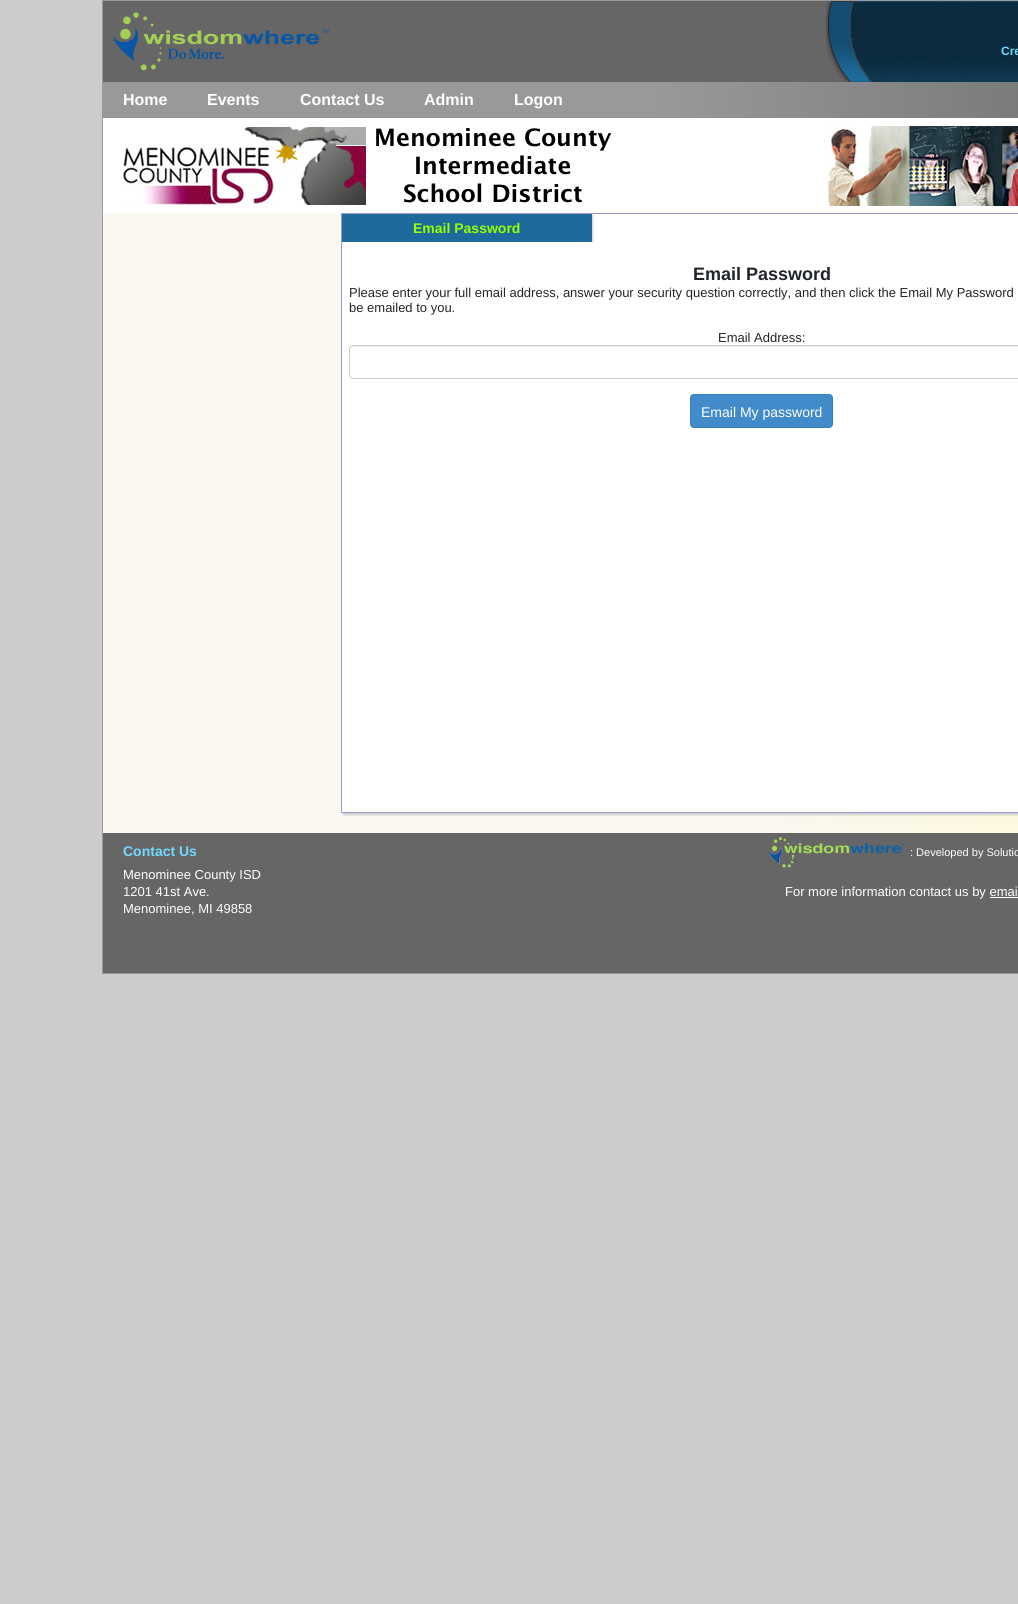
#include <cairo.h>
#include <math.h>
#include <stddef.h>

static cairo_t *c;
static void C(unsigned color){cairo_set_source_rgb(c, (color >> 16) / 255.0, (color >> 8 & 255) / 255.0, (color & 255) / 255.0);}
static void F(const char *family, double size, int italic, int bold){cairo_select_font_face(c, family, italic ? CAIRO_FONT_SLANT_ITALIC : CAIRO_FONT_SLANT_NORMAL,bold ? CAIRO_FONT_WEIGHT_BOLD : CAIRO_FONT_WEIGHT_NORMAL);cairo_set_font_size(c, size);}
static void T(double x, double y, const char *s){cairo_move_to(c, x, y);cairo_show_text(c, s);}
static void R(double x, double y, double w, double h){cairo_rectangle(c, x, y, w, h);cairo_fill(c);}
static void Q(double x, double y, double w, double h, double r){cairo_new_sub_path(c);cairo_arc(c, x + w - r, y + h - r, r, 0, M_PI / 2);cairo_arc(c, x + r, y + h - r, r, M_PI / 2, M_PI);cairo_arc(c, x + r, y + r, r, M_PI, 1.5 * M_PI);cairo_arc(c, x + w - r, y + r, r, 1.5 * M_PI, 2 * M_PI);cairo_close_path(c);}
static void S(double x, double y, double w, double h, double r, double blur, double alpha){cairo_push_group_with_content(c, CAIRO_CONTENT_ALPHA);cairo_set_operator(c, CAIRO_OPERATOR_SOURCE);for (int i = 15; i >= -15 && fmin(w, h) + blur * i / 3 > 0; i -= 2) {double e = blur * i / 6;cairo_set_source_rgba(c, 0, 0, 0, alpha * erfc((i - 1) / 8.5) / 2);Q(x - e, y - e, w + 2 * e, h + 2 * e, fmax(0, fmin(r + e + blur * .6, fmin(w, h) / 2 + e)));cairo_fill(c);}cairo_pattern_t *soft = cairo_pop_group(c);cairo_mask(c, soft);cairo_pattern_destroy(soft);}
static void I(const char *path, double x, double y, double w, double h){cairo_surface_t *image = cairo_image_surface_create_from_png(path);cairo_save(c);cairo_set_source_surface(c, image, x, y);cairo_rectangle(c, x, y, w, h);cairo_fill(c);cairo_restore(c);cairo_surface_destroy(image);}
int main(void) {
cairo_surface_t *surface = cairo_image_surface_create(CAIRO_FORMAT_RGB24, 1018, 1604);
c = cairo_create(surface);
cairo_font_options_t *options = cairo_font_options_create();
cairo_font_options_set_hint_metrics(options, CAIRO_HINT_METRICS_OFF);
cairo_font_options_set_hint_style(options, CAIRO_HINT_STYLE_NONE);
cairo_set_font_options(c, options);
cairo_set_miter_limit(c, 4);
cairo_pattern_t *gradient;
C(0xcccccc);
cairo_paint(c);
C(0x999999);
R(102,0,916,1);
R(102,973,916,1);
R(102,0,1,974);
C(0x666666);
R(103,1,723,81);
I("1.png",113,12,216,59);
I("2.png",826,1,192,81);
F("Liberation Sans",12,0,1);
C(0x71d9ff);
T(1001,55,"Cre");
gradient = cairo_pattern_create_linear(103,100,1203,100);
cairo_pattern_add_color_stop_rgba(gradient,0,0.6,0.6,0.6,1);
cairo_pattern_add_color_stop_rgba(gradient,.5,0.6,0.6,0.6,1);
cairo_pattern_add_color_stop_rgba(gradient,1,0.424,0.424,0.424,1);
cairo_set_source(c,gradient);
cairo_pattern_destroy(gradient);
R(103,82,915,36);
F("Liberation Sans",16,0,1);
C(0xffffff);
T(123,105,"Home");
T(207,105,"Events");
T(300,105,"Contact Us");
T(424,105,"Admin");
T(514,105,"Logon");
R(103,118,915,95);
I("3.png",123,127,489,78);
I("4.png",824,126,194,80);
gradient = cairo_pattern_create_linear(103,523,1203,523);
cairo_pattern_add_color_stop_rgba(gradient,0,0.98,0.973,0.941,1);
cairo_pattern_add_color_stop_rgba(gradient,.6,0.98,0.973,0.941,1);
cairo_pattern_add_color_stop_rgba(gradient,1,1,0.969,0.831,1);
cairo_set_source(c,gradient);
cairo_pattern_destroy(gradient);
R(103,213,915,620);
C(0xcccccc);
S(343,215,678,600,0,1,1);
C(0xffffff);
cairo_rectangle(c,341.5,213.5,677,599);
cairo_fill_preserve(c);
C(0x9999cc);
cairo_set_line_width(c,1);
cairo_stroke(c);
C(0xcccccc);
S(343,215,250,28,0,1,1);
C(0x1c6b9c);
R(342,214,250,28);
F("Liberation Sans",14,0,1);
C(0x99ff00);
T(413,233,"Email Password");
C(0xffffff);
R(342,242,252,3);
F("Liberation Sans",18,0,1);
C(0x212529);
T(693,280,"Email Password");
F("Liberation Sans",13,0,0);
T(349,297,"Please enter your full email address, answer your security question correctly, and then click the Email My Password");
T(349,312,"be emailed to you.");
T(718,342,"Email Address:");
C(0xececec);
cairo_new_path(c);
cairo_move_to(c,353,347);
cairo_line_to(c,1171,347);
cairo_curve_to(c,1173,347,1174,348,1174,350);
cairo_curve_to(c,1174,348,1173,346,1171,346);
cairo_line_to(c,353,346);
cairo_curve_to(c,351,346,350,348,350,350);
cairo_curve_to(c,350,348,351,347,353,347);
cairo_close_path(c);
cairo_fill(c);
Q(349.5,345.5,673,33,3.5);
C(0xcccccc);
cairo_stroke(c);
C(0x428bca);
Q(690.5,394.5,142,33,3.5);
cairo_fill_preserve(c);
C(0x357ebd);
cairo_stroke(c);
F("Liberation Sans",14,0,0);
C(0xffffff);
T(701,417,"Email My password");
C(0x666666);
R(103,833,915,140);
F("Liberation Sans",14,0,1);
C(0x71d9ff);
T(123,856,"Contact Us");
F("Liberation Sans",13,0,0);
C(0xffffff);
T(123,879,"Menominee County ISD");
T(123,896,"1201 41st Ave.");
T(123,913,"Menominee, MI 49858");
I("5.png",768,837,138,31);
F("Liberation Sans",11,0,0);
T(910,856,": Developed by Solutio");
F("Liberation Sans",13,0,0);
T(785,896,"For more information contact us by emai");
R(990,897,28,1);
cairo_surface_write_to_png(surface, "o.png");
cairo_font_options_destroy(options);
cairo_destroy(c);
cairo_surface_destroy(surface);
return 0;
}
